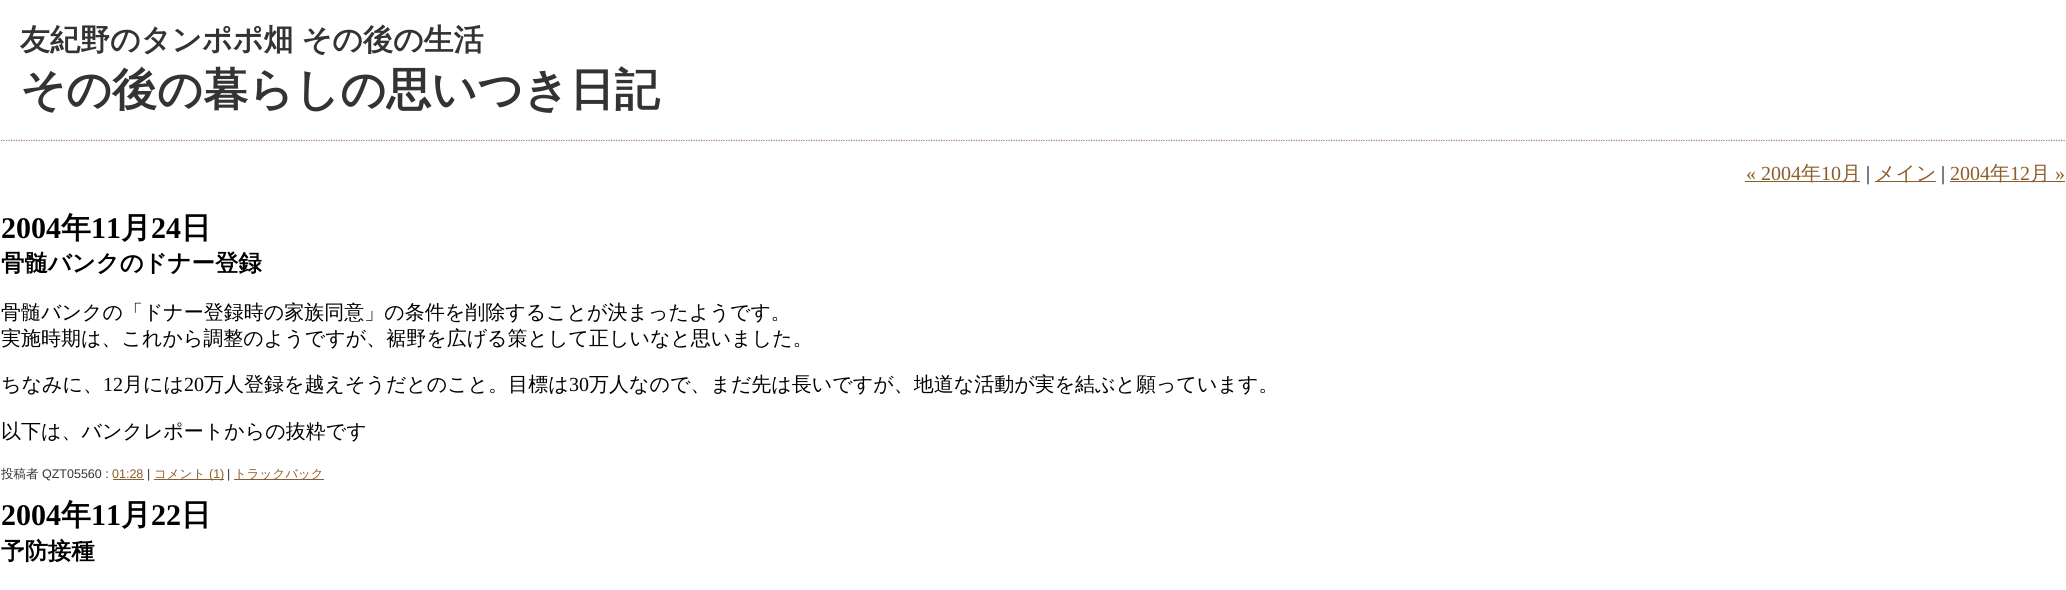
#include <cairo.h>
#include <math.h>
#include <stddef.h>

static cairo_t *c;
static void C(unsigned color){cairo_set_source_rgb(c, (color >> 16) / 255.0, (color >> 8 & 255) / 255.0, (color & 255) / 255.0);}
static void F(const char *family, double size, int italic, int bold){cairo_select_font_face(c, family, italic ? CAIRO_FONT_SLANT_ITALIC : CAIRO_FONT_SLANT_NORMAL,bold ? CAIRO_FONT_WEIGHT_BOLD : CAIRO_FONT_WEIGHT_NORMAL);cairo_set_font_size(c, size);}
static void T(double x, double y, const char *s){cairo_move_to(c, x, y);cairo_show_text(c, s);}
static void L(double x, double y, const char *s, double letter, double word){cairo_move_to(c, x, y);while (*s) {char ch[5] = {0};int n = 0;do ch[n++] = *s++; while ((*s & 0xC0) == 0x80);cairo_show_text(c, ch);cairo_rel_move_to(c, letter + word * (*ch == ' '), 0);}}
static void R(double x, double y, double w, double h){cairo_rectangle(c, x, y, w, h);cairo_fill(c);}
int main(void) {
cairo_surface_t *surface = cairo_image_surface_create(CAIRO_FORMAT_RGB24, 2066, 590);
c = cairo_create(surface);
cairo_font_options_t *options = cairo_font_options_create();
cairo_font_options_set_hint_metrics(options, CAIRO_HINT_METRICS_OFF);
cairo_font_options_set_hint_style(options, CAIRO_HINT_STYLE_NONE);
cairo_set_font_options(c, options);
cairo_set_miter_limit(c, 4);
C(0xffffff);
cairo_paint(c);
cairo_new_path(c);
cairo_move_to(c,1,140.5);
cairo_line_to(c,2065,140.5);
C(0xa57d6b);
cairo_set_line_width(c,1.2);
cairo_set_dash(c,(double[]){1.25,1.25},2,0);
cairo_stroke(c);
F("WenQuanYi Zen Hei",30,0,1);
C(0x333333);
L(20,50,"友紀野のタンポポ畑 その後の生活",0,-1);
F("WenQuanYi Zen Hei",45,0,1);
T(20,105,"その後の暮らしの思いつき日記");
F("Liberation Serif",20,0,0);
C(0x8c5c2c);
T(1746,180,"« 2004");
R(1745,181,115,1);
F("WenQuanYi Zen Hei Medium",20,0,0);
T(1801,180,"年");
F("Liberation Serif",20,0,0);
T(1821,180,"10");
F("WenQuanYi Zen Hei Medium",20,0,0);
T(1841,180,"月");
F("Liberation Serif",20,0,0);
C(0x000000);
T(1866,180,"|");
C(0x8c5c2c);
R(1875,181,61,1);
F("WenQuanYi Zen Hei Medium",20,0,0);
T(1875,180,"メイン");
F("Liberation Serif",20,0,0);
C(0x000000);
T(1941,180,"|");
C(0x8c5c2c);
T(1950,180,"2004");
R(1950,181,115,1);
F("WenQuanYi Zen Hei Medium",20,0,0);
T(1990,180,"年");
F("Liberation Serif",20,0,0);
T(2010,180,"12");
F("WenQuanYi Zen Hei Medium",20,0,0);
T(2030,180,"月");
F("Liberation Serif",20,0,0);
T(2055,180,"»");
F("Liberation Serif",30,0,1);
C(0x000000);
T(1,238,"2004");
F("WenQuanYi Zen Hei",30,0,1);
T(61,238,"年");
F("Liberation Serif",30,0,1);
T(91,238,"11");
F("WenQuanYi Zen Hei",30,0,1);
T(121,238,"月");
F("Liberation Serif",30,0,1);
T(151,238,"24");
F("WenQuanYi Zen Hei",30,0,1);
T(181,238,"日");
F("WenQuanYi Zen Hei",23.4,0,1);
T(1,271,"骨髄バンクのドナー登録");
F("WenQuanYi Zen Hei Medium",20,0,0);
T(1,319,"骨髄バンクの「ドナー登録時の家族同意」の条件を削除することが決まったようです。");
T(1,345,"実施時期は、これから調整のようですが、裾野を広げる策として正しいなと思いました。");
T(1,391,"ちなみに、");
F("Liberation Serif",20,0,0);
T(103,391,"12");
F("WenQuanYi Zen Hei Medium",20,0,0);
T(123,391,"月には");
F("Liberation Serif",20,0,0);
T(184,391,"20");
F("WenQuanYi Zen Hei Medium",20,0,0);
T(204,391,"万人登録を越えそうだとのこと。目標は");
F("Liberation Serif",20,0,0);
T(569,391,"30");
F("WenQuanYi Zen Hei Medium",20,0,0);
T(589,391,"万人なので、まだ先は長いですが、地道な活動が実を結ぶと願っています。");
T(1,438,"以下は、バンクレポートからの抜粋です");
F("WenQuanYi Zen Hei Medium",12.5,0,0);
C(0x333333);
T(1,478,"投稿者");
F("Liberation Sans",12.5,0,0);
T(42,478,"QZT05560 :");
C(0x8c5c2c);
T(112,478,"01:28");
R(113,479,31,1);
C(0x333333);
T(147,478,"|");
C(0x8c5c2c);
R(154,479,70,1);
F("WenQuanYi Zen Hei Medium",12.5,0,0);
T(154,478,"コメント");
F("Liberation Sans",12.5,0,0);
T(209,478,"(1)");
C(0x333333);
T(227,478,"|");
C(0x8c5c2c);
R(234,479,90,1);
F("WenQuanYi Zen Hei Medium",12.5,0,0);
T(234,478,"トラックバック");
F("Liberation Serif",30,0,1);
C(0x000000);
T(1,525,"2004");
F("WenQuanYi Zen Hei",30,0,1);
T(61,525,"年");
F("Liberation Serif",30,0,1);
T(91,525,"11");
F("WenQuanYi Zen Hei",30,0,1);
T(121,525,"月");
F("Liberation Serif",30,0,1);
T(151,525,"22");
F("WenQuanYi Zen Hei",30,0,1);
T(181,525,"日");
F("WenQuanYi Zen Hei",23.4,0,1);
T(1,559,"予防接種");
cairo_surface_write_to_png(surface, "o.png");
cairo_font_options_destroy(options);
cairo_destroy(c);
cairo_surface_destroy(surface);
return 0;
}
